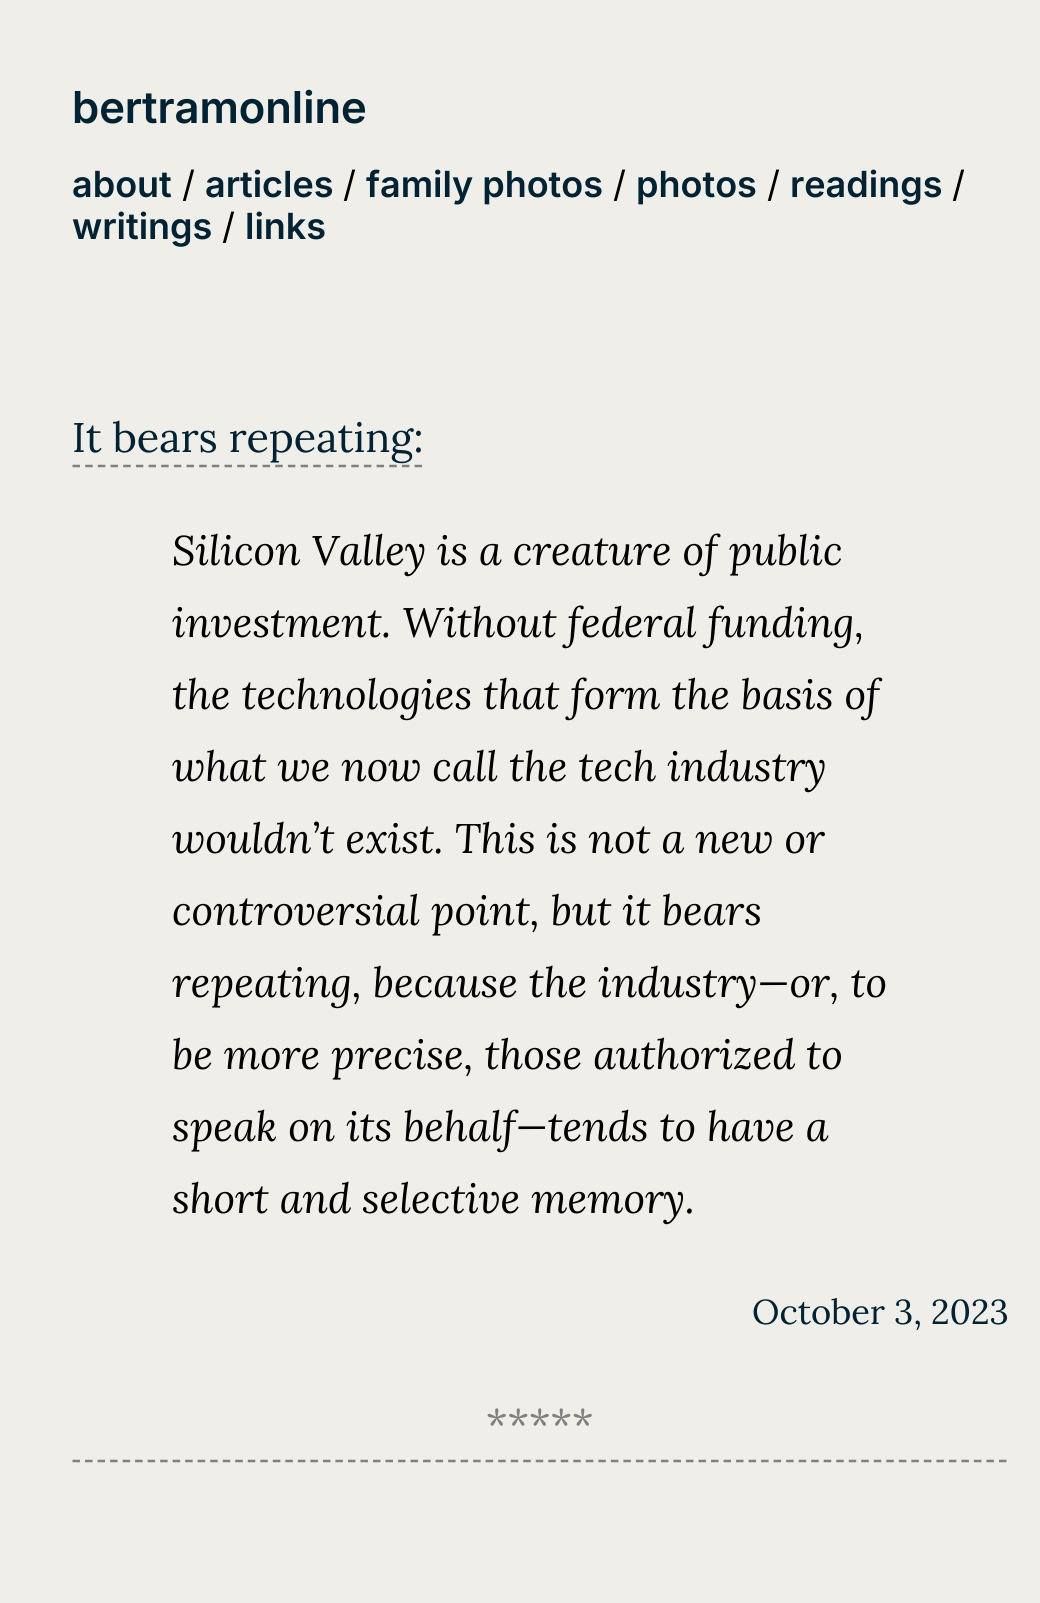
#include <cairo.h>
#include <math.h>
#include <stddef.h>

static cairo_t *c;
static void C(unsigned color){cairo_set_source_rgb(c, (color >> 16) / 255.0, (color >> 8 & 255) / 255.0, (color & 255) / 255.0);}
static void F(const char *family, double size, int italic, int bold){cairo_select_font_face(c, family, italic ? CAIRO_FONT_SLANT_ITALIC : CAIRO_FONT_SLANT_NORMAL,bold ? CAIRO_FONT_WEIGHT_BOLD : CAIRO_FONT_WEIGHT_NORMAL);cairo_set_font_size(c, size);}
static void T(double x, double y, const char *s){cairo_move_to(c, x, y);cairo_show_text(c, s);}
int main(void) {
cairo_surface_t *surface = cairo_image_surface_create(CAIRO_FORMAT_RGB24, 1040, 1603);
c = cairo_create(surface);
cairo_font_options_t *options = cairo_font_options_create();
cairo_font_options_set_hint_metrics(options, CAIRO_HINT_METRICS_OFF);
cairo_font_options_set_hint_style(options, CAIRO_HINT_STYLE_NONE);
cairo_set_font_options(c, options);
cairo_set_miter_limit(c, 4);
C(0xf0eee9);
cairo_paint(c);
F("Inter SemiBold",44,0,0);
C(0x002233);
T(72,123,"bertramonline");
F("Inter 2 SemiBold",36,0,0);
T(72,197,"about");
F("Inter",36,0,0);
C(0x000000);
T(182,197,"/");
F("Inter 2 SemiBold",36,0,0);
C(0x002233);
T(205,197,"articles");
F("Inter",36,0,0);
C(0x000000);
T(343,197,"/");
F("Inter 2 SemiBold",36,0,0);
C(0x002233);
T(366,197,"family photos");
F("Inter",36,0,0);
C(0x000000);
T(613,197,"/");
F("Inter 2 SemiBold",36,0,0);
C(0x002233);
T(636,197,"photos");
F("Inter",36,0,0);
C(0x000000);
T(767,197,"/");
F("Inter 2 SemiBold",36,0,0);
C(0x002233);
T(790,197,"readings");
F("Inter",36,0,0);
C(0x000000);
T(952,197,"/");
F("Inter 2 SemiBold",36,0,0);
C(0x002233);
T(72,239,"writings");
F("Inter",36,0,0);
C(0x000000);
T(222,239,"/");
F("Inter 2 SemiBold",36,0,0);
C(0x002233);
T(245,239,"links");
F("Lora",41.4,0,0);
T(72,452,"It bears repeating:");
cairo_new_path(c);
cairo_move_to(c,72.5,466);
cairo_line_to(c,422.5,466);
C(0x808080);
cairo_set_line_width(c,2.5);
cairo_set_dash(c,(double[]){7.5,5.17},2,0);
cairo_stroke(c);
F("Lora",41.4,1,0);
C(0x000000);
T(172,565,"Silicon Valley is a creature of public");
T(172,637,"investment. Without federal funding,");
T(172,709,"the technologies that form the basis of");
T(172,781,"what we now call the tech industry");
T(172,853,"wouldn’t exist. This is not a new or");
T(172,925,"controversial point, but it bears");
T(172,997,"repeating, because the industry—or, to");
T(172,1069,"be more precise, those authorized to");
T(172,1141,"speak on its behalf—tends to have a");
T(172,1213,"short and selective memory.");
cairo_new_path(c);
cairo_move_to(c,72.5,1461);
cairo_line_to(c,1007.5,1461);
C(0x808080);
cairo_set_dash(c,(double[]){7.5,5.02},2,0);
cairo_stroke(c);
F("Lora",34.5,0,0);
C(0x002233);
T(752,1324,"October 3, 2023");
F("Lora",41.4,0,0);
C(0x808080);
T(486,1438,"*****");
cairo_surface_write_to_png(surface, "o.png");
cairo_font_options_destroy(options);
cairo_destroy(c);
cairo_surface_destroy(surface);
return 0;
}
